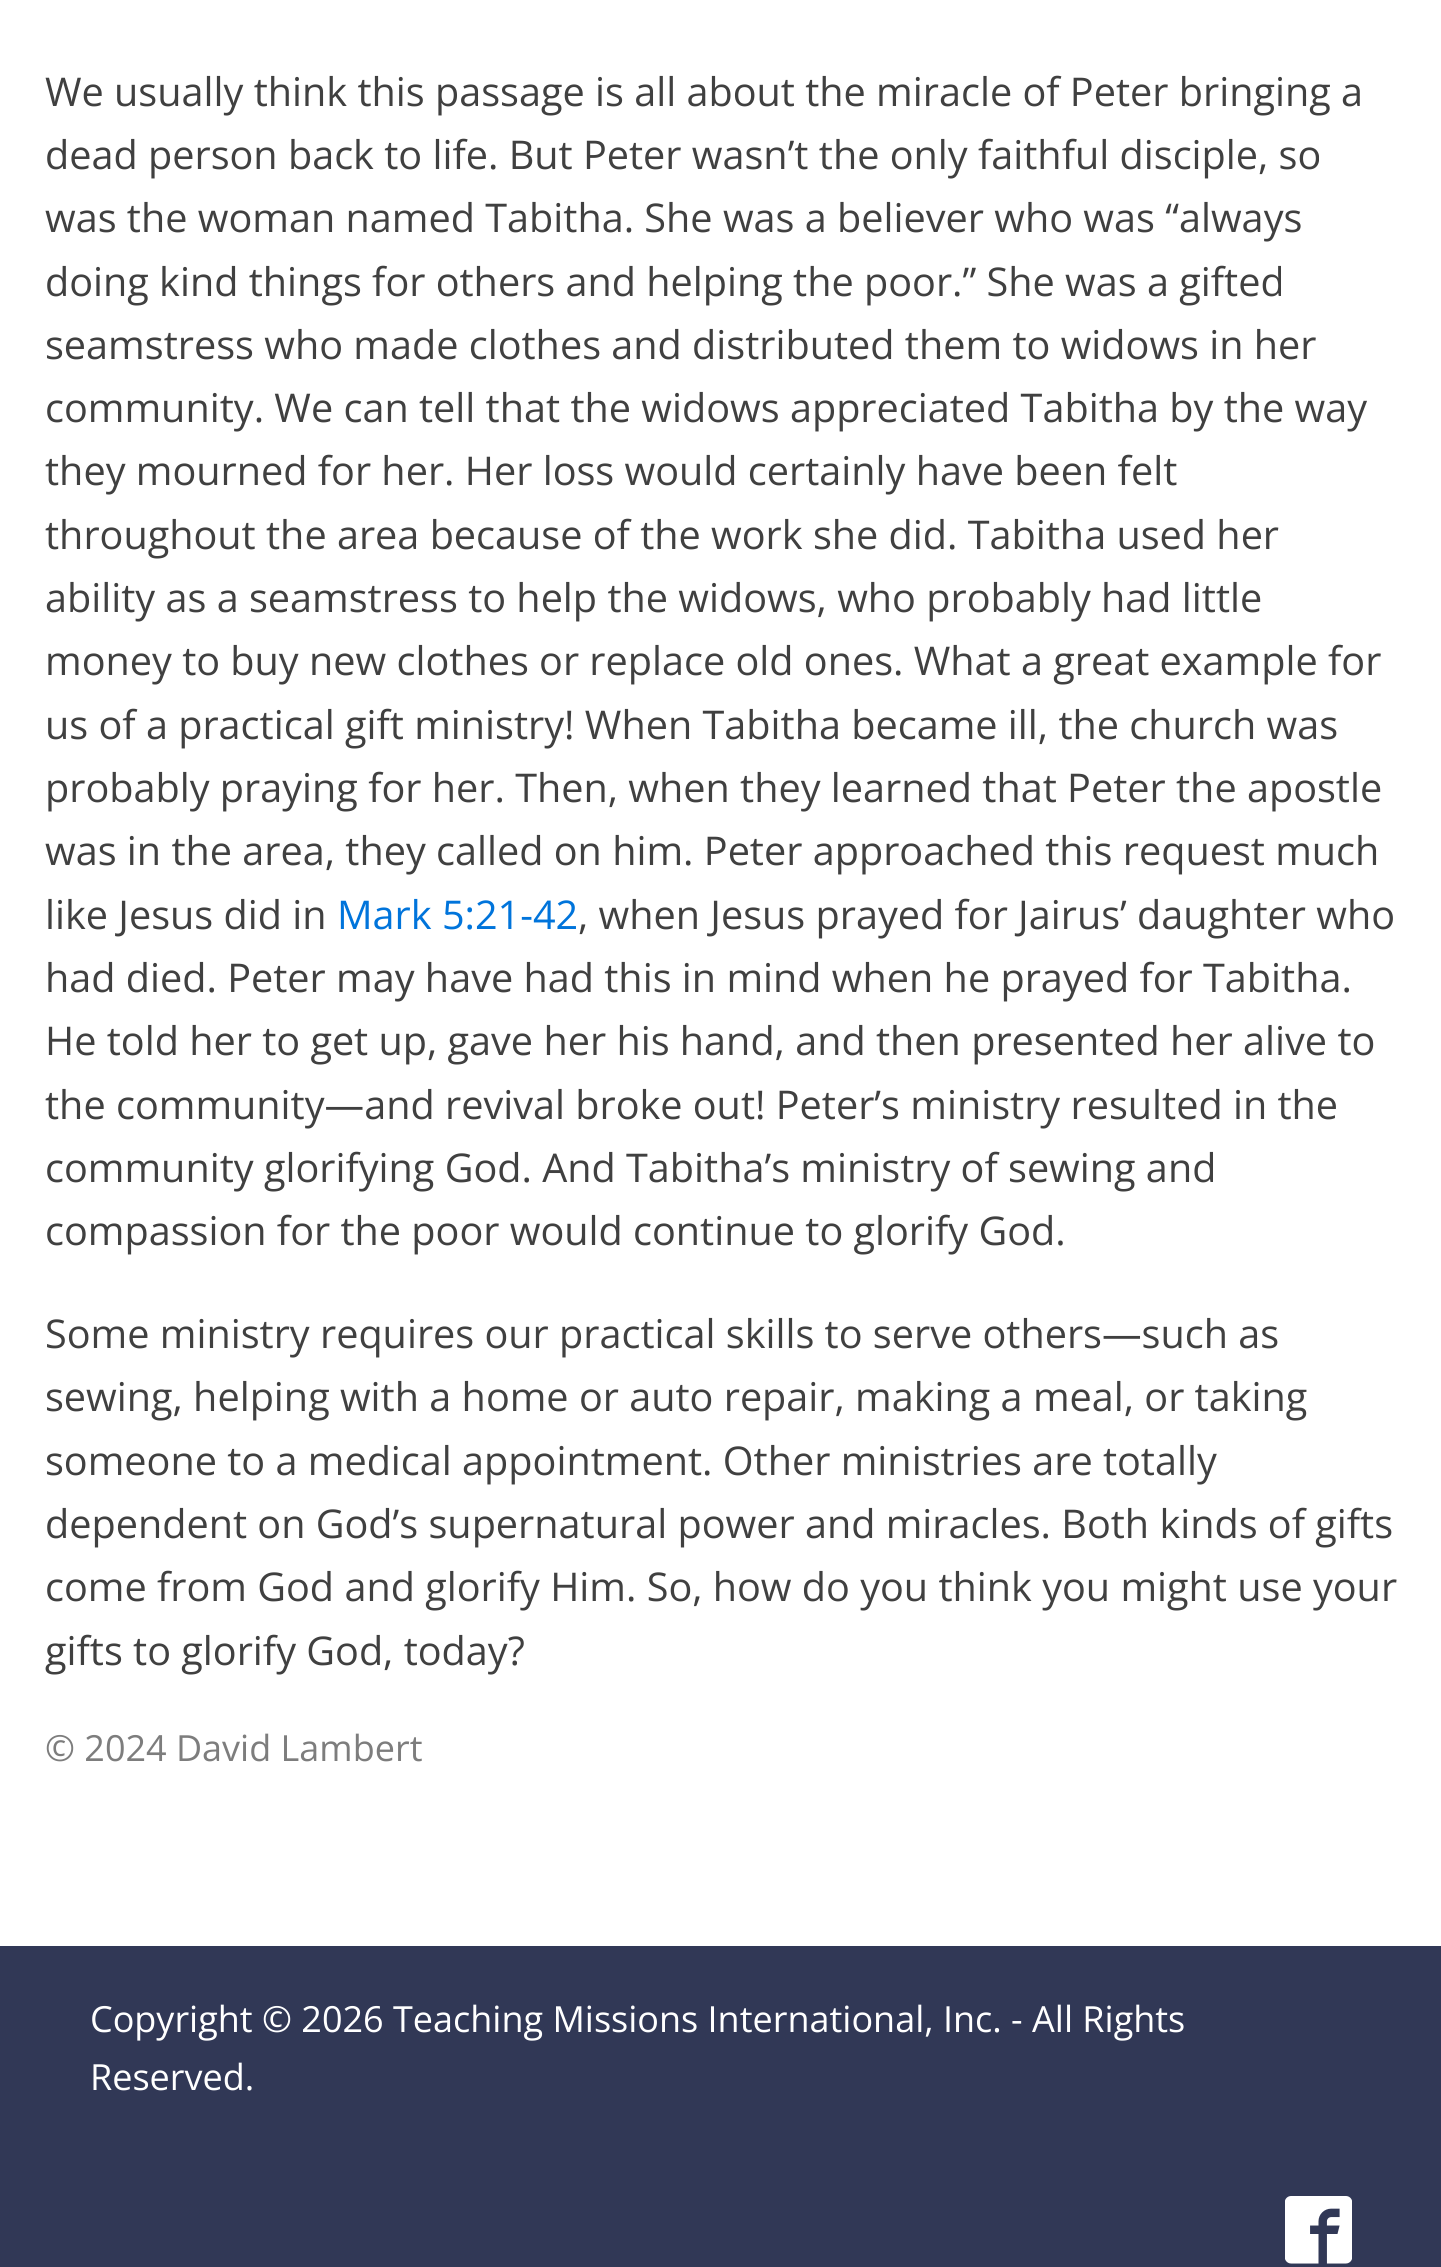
#include <cairo.h>
#include <math.h>
#include <stddef.h>

static cairo_t *c;
static void C(unsigned color){cairo_set_source_rgb(c, (color >> 16) / 255.0, (color >> 8 & 255) / 255.0, (color & 255) / 255.0);}
static void F(const char *family, double size, int italic, int bold){cairo_select_font_face(c, family, italic ? CAIRO_FONT_SLANT_ITALIC : CAIRO_FONT_SLANT_NORMAL,bold ? CAIRO_FONT_WEIGHT_BOLD : CAIRO_FONT_WEIGHT_NORMAL);cairo_set_font_size(c, size);}
static void T(double x, double y, const char *s){cairo_move_to(c, x, y);cairo_show_text(c, s);}
static void R(double x, double y, double w, double h){cairo_rectangle(c, x, y, w, h);cairo_fill(c);}
static void I(const char *path, double x, double y, double w, double h){cairo_surface_t *image = cairo_image_surface_create_from_png(path);cairo_save(c);cairo_set_source_surface(c, image, x, y);cairo_rectangle(c, x, y, w, h);cairo_fill(c);cairo_restore(c);cairo_surface_destroy(image);}
int main(void) {
cairo_surface_t *surface = cairo_image_surface_create(CAIRO_FORMAT_RGB24, 1441, 2267);
c = cairo_create(surface);
cairo_font_options_t *options = cairo_font_options_create();
cairo_font_options_set_hint_metrics(options, CAIRO_HINT_METRICS_OFF);
cairo_font_options_set_hint_style(options, CAIRO_HINT_STYLE_NONE);
cairo_set_font_options(c, options);
cairo_set_miter_limit(c, 4);
C(0xffffff);
cairo_paint(c);
F("Open Sans",39.6,0,0);
C(0x404040);
T(45,106,"We usually think this passage is all about the miracle of Peter bringing a");
T(45,169,"dead person back to life. But Peter wasn’t the only faithful disciple, so");
T(45,232,"was the woman named Tabitha. She was a believer who was “always");
T(45,296,"doing kind things for others and helping the poor.” She was a gifted");
T(45,359,"seamstress who made clothes and distributed them to widows in her");
T(45,422,"community. We can tell that the widows appreciated Tabitha by the way");
T(45,485,"they mourned for her. Her loss would certainly have been felt");
T(45,549,"throughout the area because of the work she did. Tabitha used her");
T(45,612,"ability as a seamstress to help the widows, who probably had little");
T(45,675,"money to buy new clothes or replace old ones. What a great example for");
T(45,739,"us of a practical gift ministry! When Tabitha became ill, the church was");
T(45,802,"probably praying for her. Then, when they learned that Peter the apostle");
T(45,865,"was in the area, they called on him. Peter approached this request much");
T(45,929,"like Jesus did in");
C(0x0074db);
T(337,929,"Mark 5:21-42");
C(0x404040);
T(578,929,", when Jesus prayed for Jairus’ daughter who");
T(45,992,"had died. Peter may have had this in mind when he prayed for Tabitha.");
T(45,1055,"He told her to get up, gave her his hand, and then presented her alive to");
T(45,1119,"the community—and revival broke out! Peter’s ministry resulted in the");
T(45,1182,"community glorifying God. And Tabitha’s ministry of sewing and");
T(45,1245,"compassion for the poor would continue to glorify God.");
T(45,1348,"Some ministry requires our practical skills to serve others—such as");
T(45,1411,"sewing, helping with a home or auto repair, making a meal, or taking");
T(45,1475,"someone to a medical appointment. Other ministries are totally");
T(45,1538,"dependent on God’s supernatural power and miracles. Both kinds of gifts");
T(45,1601,"come from God and glorify Him. So, how do you think you might use your");
T(45,1665,"gifts to glorify God, today?");
F("Open Sans",36,0,0);
C(0x7d7d7d);
T(45,1761,"© 2024 David Lambert");
C(0x313856);
R(0,1946,1441,321);
C(0xffffff);
T(90,2032,"Copyright © 2026 Teaching Missions International, Inc. - All Rights");
T(90,2090,"Reserved.");
I("1.png",1285,2196,67,68);
cairo_surface_write_to_png(surface, "o.png");
cairo_font_options_destroy(options);
cairo_destroy(c);
cairo_surface_destroy(surface);
return 0;
}
